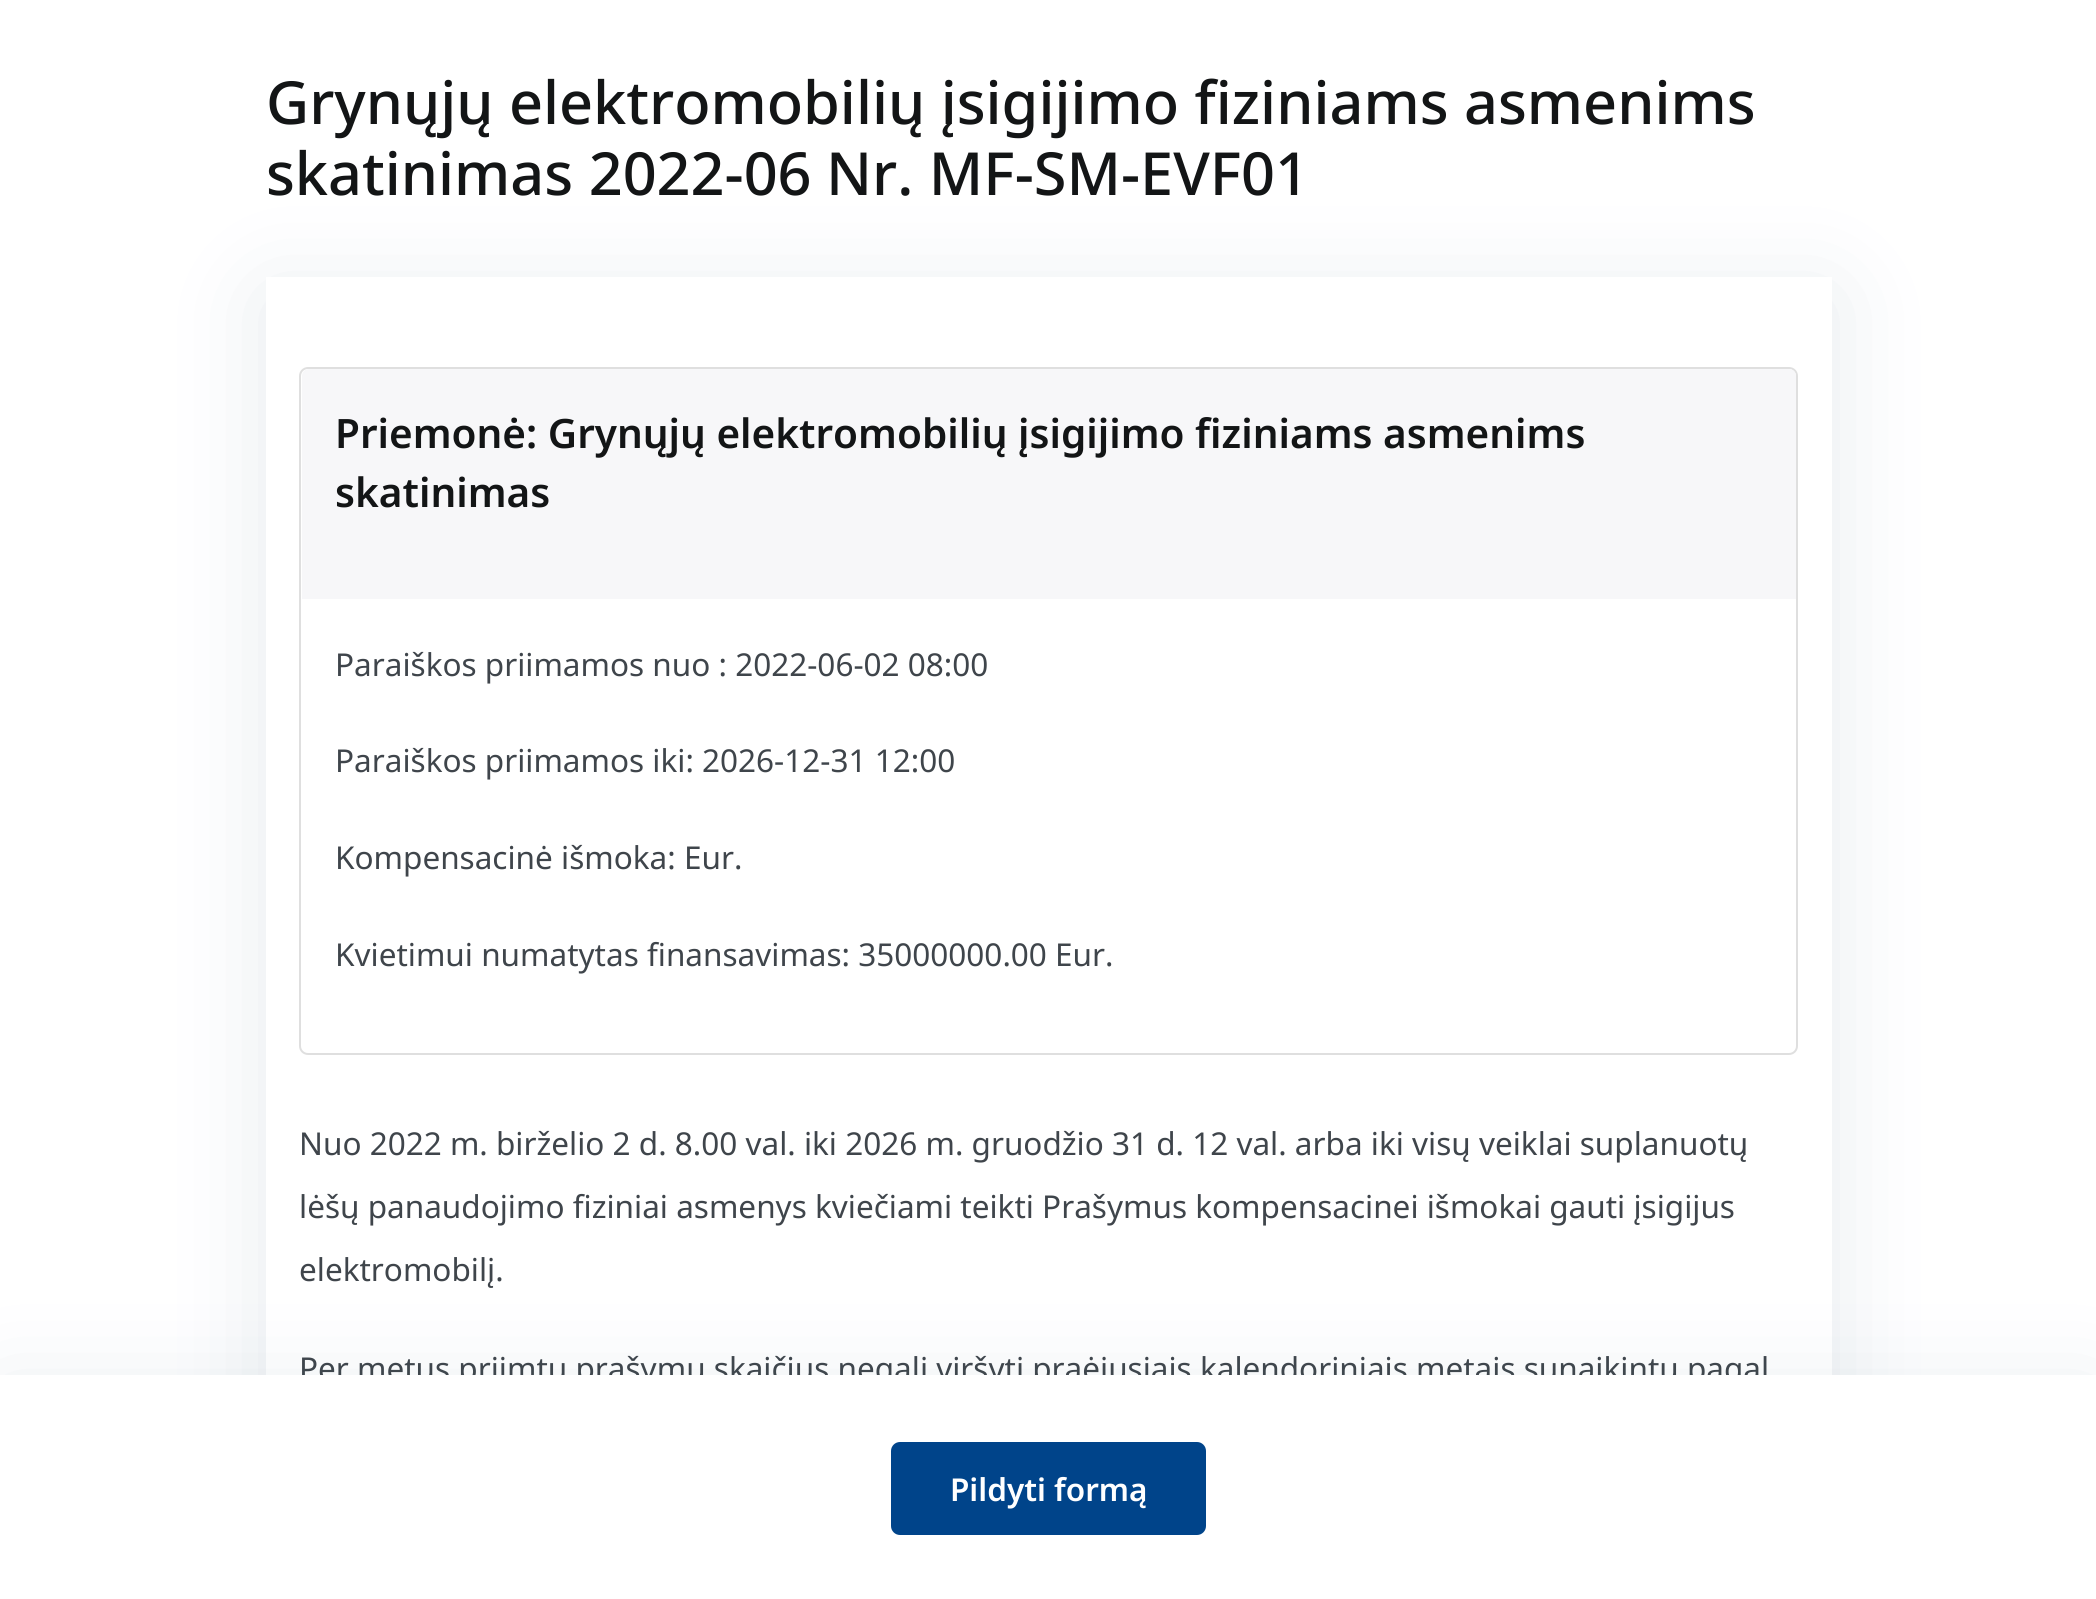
#include <cairo.h>
#include <math.h>
#include <stddef.h>

static cairo_t *c;
static void C(unsigned color){cairo_set_source_rgb(c, (color >> 16) / 255.0, (color >> 8 & 255) / 255.0, (color & 255) / 255.0);}
static void F(const char *family, double size, int italic, int bold){cairo_select_font_face(c, family, italic ? CAIRO_FONT_SLANT_ITALIC : CAIRO_FONT_SLANT_NORMAL,bold ? CAIRO_FONT_WEIGHT_BOLD : CAIRO_FONT_WEIGHT_NORMAL);cairo_set_font_size(c, size);}
static void T(double x, double y, const char *s){cairo_move_to(c, x, y);cairo_show_text(c, s);}
static void R(double x, double y, double w, double h){cairo_rectangle(c, x, y, w, h);cairo_fill(c);}
static void Q(double x, double y, double w, double h, double r){cairo_new_sub_path(c);cairo_arc(c, x + w - r, y + h - r, r, 0, M_PI / 2);cairo_arc(c, x + r, y + h - r, r, M_PI / 2, M_PI);cairo_arc(c, x + r, y + r, r, M_PI, 1.5 * M_PI);cairo_arc(c, x + w - r, y + r, r, 1.5 * M_PI, 2 * M_PI);cairo_close_path(c);}
static void S(double x, double y, double w, double h, double r, double blur, double alpha){cairo_push_group_with_content(c, CAIRO_CONTENT_ALPHA);cairo_set_operator(c, CAIRO_OPERATOR_SOURCE);for (int i = 15; i >= -15 && fmin(w, h) + blur * i / 3 > 0; i -= 2) {double e = blur * i / 6;cairo_set_source_rgba(c, 0, 0, 0, alpha * erfc((i - 1) / 8.5) / 2);Q(x - e, y - e, w + 2 * e, h + 2 * e, fmax(0, fmin(r + e + blur * .6, fmin(w, h) / 2 + e)));cairo_fill(c);}cairo_pattern_t *soft = cairo_pop_group(c);cairo_mask(c, soft);cairo_pattern_destroy(soft);}
int main(void) {
cairo_surface_t *surface = cairo_image_surface_create(CAIRO_FORMAT_RGB24, 2096, 1599);
c = cairo_create(surface);
cairo_font_options_t *options = cairo_font_options_create();
cairo_font_options_set_hint_metrics(options, CAIRO_HINT_METRICS_OFF);
cairo_font_options_set_hint_style(options, CAIRO_HINT_STYLE_NONE);
cairo_set_font_options(c, options);
cairo_set_miter_limit(c, 4);
C(0xffffff);
cairo_paint(c);
F("Noto Sans Medium",59.4,0,0);
C(0x131516);
T(266,124,"Grynųjų elektromobilių įsigijimo fiziniams asmenims");
T(266,195,"skatinimas 2022-06");
T(826,195,"Nr. MF-SM-EVF01");
C(0x426080);
S(266,295,1566,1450,0,48.5,.13);
C(0xffffff);
R(266,277,1566,1098);
Q(300,368,1497,686,8);
C(0xdfdfdf);
cairo_stroke(c);
C(0xf7f7f9);
cairo_new_path(c);
cairo_move_to(c,309,369);
cairo_line_to(c,1789,369);
cairo_curve_to(c,1793,369,1796,372,1796,376);
cairo_line_to(c,1796,599);
cairo_line_to(c,302,599);
cairo_line_to(c,302,376);
cairo_curve_to(c,302,372,305,369,309,369);
cairo_close_path(c);
cairo_fill(c);
F("Noto Sans SemiBold",40.5,0,0);
C(0x131516);
T(335,448,"Priemonė: Grynųjų elektromobilių įsigijimo fiziniams asmenims");
T(335,507,"skatinimas");
F("Noto Sans",31.5,0,0);
C(0x3f454b);
T(335,676,"Paraiškos priimamos nuo : 2022-06-02 08:00");
T(335,772,"Paraiškos priimamos iki: 2026-12-31 12:00");
T(335,869,"Kompensacinė išmoka: Eur.");
T(335,966,"Kvietimui numatytas finansavimas: 35000000.00 Eur.");
T(299,1155,"Nuo 2022 m. birželio 2 d. 8.00 val. iki 2026 m. gruodžio 31 d. 12 val. arba iki visų veiklai suplanuotų");
T(299,1218,"lėšų panaudojimo fiziniai asmenys kviečiami teikti Prašymus kompensacinei išmokai gauti įsigijus");
T(299,1281,"elektromobilį.");
T(299,1380,"Per metus priimtų prašymų skaičius negali viršyti praėjusiais kalendoriniais metais sunaikintų pagal");
C(0x426080);
S(0,1393,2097,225,0,48.5,.13);
C(0xffffff);
R(0,1375,2096,224);
C(0x00448a);
Q(891,1442,315,93,9);
cairo_fill(c);
F("Noto Sans SemiBold",31.5,0,0);
C(0xffffff);
T(950,1501,"Pildyti formą");
cairo_surface_write_to_png(surface, "o.png");
cairo_font_options_destroy(options);
cairo_destroy(c);
cairo_surface_destroy(surface);
return 0;
}
